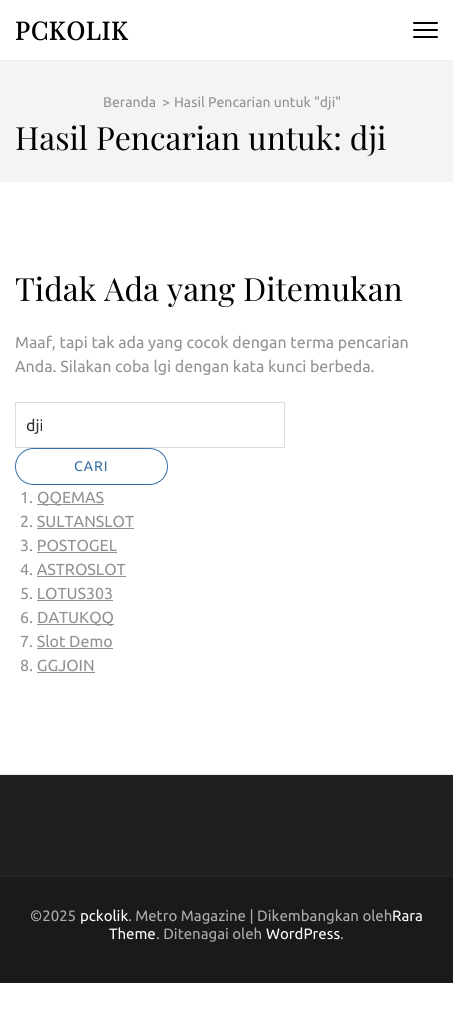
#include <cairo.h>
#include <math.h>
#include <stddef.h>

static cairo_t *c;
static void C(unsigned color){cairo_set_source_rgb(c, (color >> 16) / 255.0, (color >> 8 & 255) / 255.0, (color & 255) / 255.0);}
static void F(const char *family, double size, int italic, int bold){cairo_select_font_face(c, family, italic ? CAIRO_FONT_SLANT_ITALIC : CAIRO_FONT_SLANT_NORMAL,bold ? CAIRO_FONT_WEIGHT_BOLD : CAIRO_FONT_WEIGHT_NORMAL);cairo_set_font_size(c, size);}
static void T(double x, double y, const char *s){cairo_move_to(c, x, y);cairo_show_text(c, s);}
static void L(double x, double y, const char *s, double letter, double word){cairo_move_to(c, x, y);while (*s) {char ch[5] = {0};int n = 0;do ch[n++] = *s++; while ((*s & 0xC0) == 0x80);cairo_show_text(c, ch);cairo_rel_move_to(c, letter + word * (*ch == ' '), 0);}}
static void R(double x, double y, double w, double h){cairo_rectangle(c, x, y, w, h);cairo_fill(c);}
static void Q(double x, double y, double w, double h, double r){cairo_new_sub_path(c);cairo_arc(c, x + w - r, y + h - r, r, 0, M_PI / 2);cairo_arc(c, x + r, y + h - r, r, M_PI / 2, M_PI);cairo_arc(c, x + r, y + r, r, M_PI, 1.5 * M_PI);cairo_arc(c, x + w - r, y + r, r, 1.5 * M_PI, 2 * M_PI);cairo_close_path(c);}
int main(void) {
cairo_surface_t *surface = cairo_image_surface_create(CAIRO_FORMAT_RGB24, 453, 1023);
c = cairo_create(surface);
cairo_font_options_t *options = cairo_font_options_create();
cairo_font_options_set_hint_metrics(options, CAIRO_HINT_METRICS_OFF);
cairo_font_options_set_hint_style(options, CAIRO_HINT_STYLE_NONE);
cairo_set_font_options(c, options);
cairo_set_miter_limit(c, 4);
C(0xffffff);
cairo_paint(c);
F("Playfair Display",25,0,1);
C(0x000000);
L(15,40,"PCKOLIK",1,0);
Q(413,22,25,2,1);
cairo_fill(c);
Q(413,29,25,2,1);
cairo_fill(c);
Q(413,36,25,2,1);
cairo_fill(c);
C(0xf4f4f4);
R(0,61,453,121);
C(0xebebeb);
R(0,60,453,1);
F("Ubuntu",14,0,0);
C(0x919191);
T(103,107,"Beranda");
T(162,107,">");
T(174,107,"Hasil Pencarian untuk \"dji\"");
F("Playfair Display",32,0,0);
C(0x000000);
T(15,150,"Hasil Pencarian untuk: dji");
C(0xebebeb);
R(0,774,453,1);
C(0x000000);
T(15,301,"Tidak Ada yang Ditemukan");
F("Ubuntu",16,0,0);
C(0x919191);
T(15,348,"Maaf, tapi tak ada yang cocok dengan terma pencarian");
T(15,372,"Anda. Silakan coba lgi dengan kata kunci berbeda.");
cairo_rectangle(c,15.5,402.5,269,45);
C(0xdbdbdb);
cairo_set_line_width(c,1);
cairo_stroke(c);
C(0x333333);
T(26,431,"dji");
Q(15.5,448.5,152,36,18);
C(0x386fa7);
cairo_stroke(c);
F("Ubuntu",14,0,0);
L(74,471,"CARI",1,0);
F("Ubuntu",16,0,0);
C(0x919191);
T(20,503,"1.");
R(37,504,67,1);
T(37,503,"QQEMAS");
T(20,527,"2. SULTANSLOT");
R(37,528,97,1);
T(20,551,"3. POSTOGEL");
R(37,552,80,1);
T(20,575,"4. ASTROSLOT");
R(37,576,89,1);
T(20,599,"5. LOTUS303");
R(37,600,76,1);
T(20,623,"6.");
R(37,624,77,1);
T(37,623,"DATUKQQ");
T(20,647,"7. Slot Demo");
R(37,648,76,1);
T(20,671,"8. GGJOIN");
R(37,672,58,1);
C(0x202020);
R(0,775,453,101);
C(0x1a1a1a);
R(0,877,453,106);
C(0x252525);
R(0,876,453,1);
F("Ubuntu",15,0,0);
C(0xadadad);
T(30,921,"©2025");
C(0xffffff);
T(80,921,"pckolik");
C(0xadadad);
T(128,921,". Metro Magazine | Dikembangkan oleh");
C(0xffffff);
T(392,921,"Rara");
T(109,939,"Theme");
C(0xadadad);
T(156,939,". Ditenagai oleh");
C(0xffffff);
T(266,939,"WordPress");
C(0xadadad);
T(340,939,".");
cairo_surface_write_to_png(surface, "o.png");
cairo_font_options_destroy(options);
cairo_destroy(c);
cairo_surface_destroy(surface);
return 0;
}
